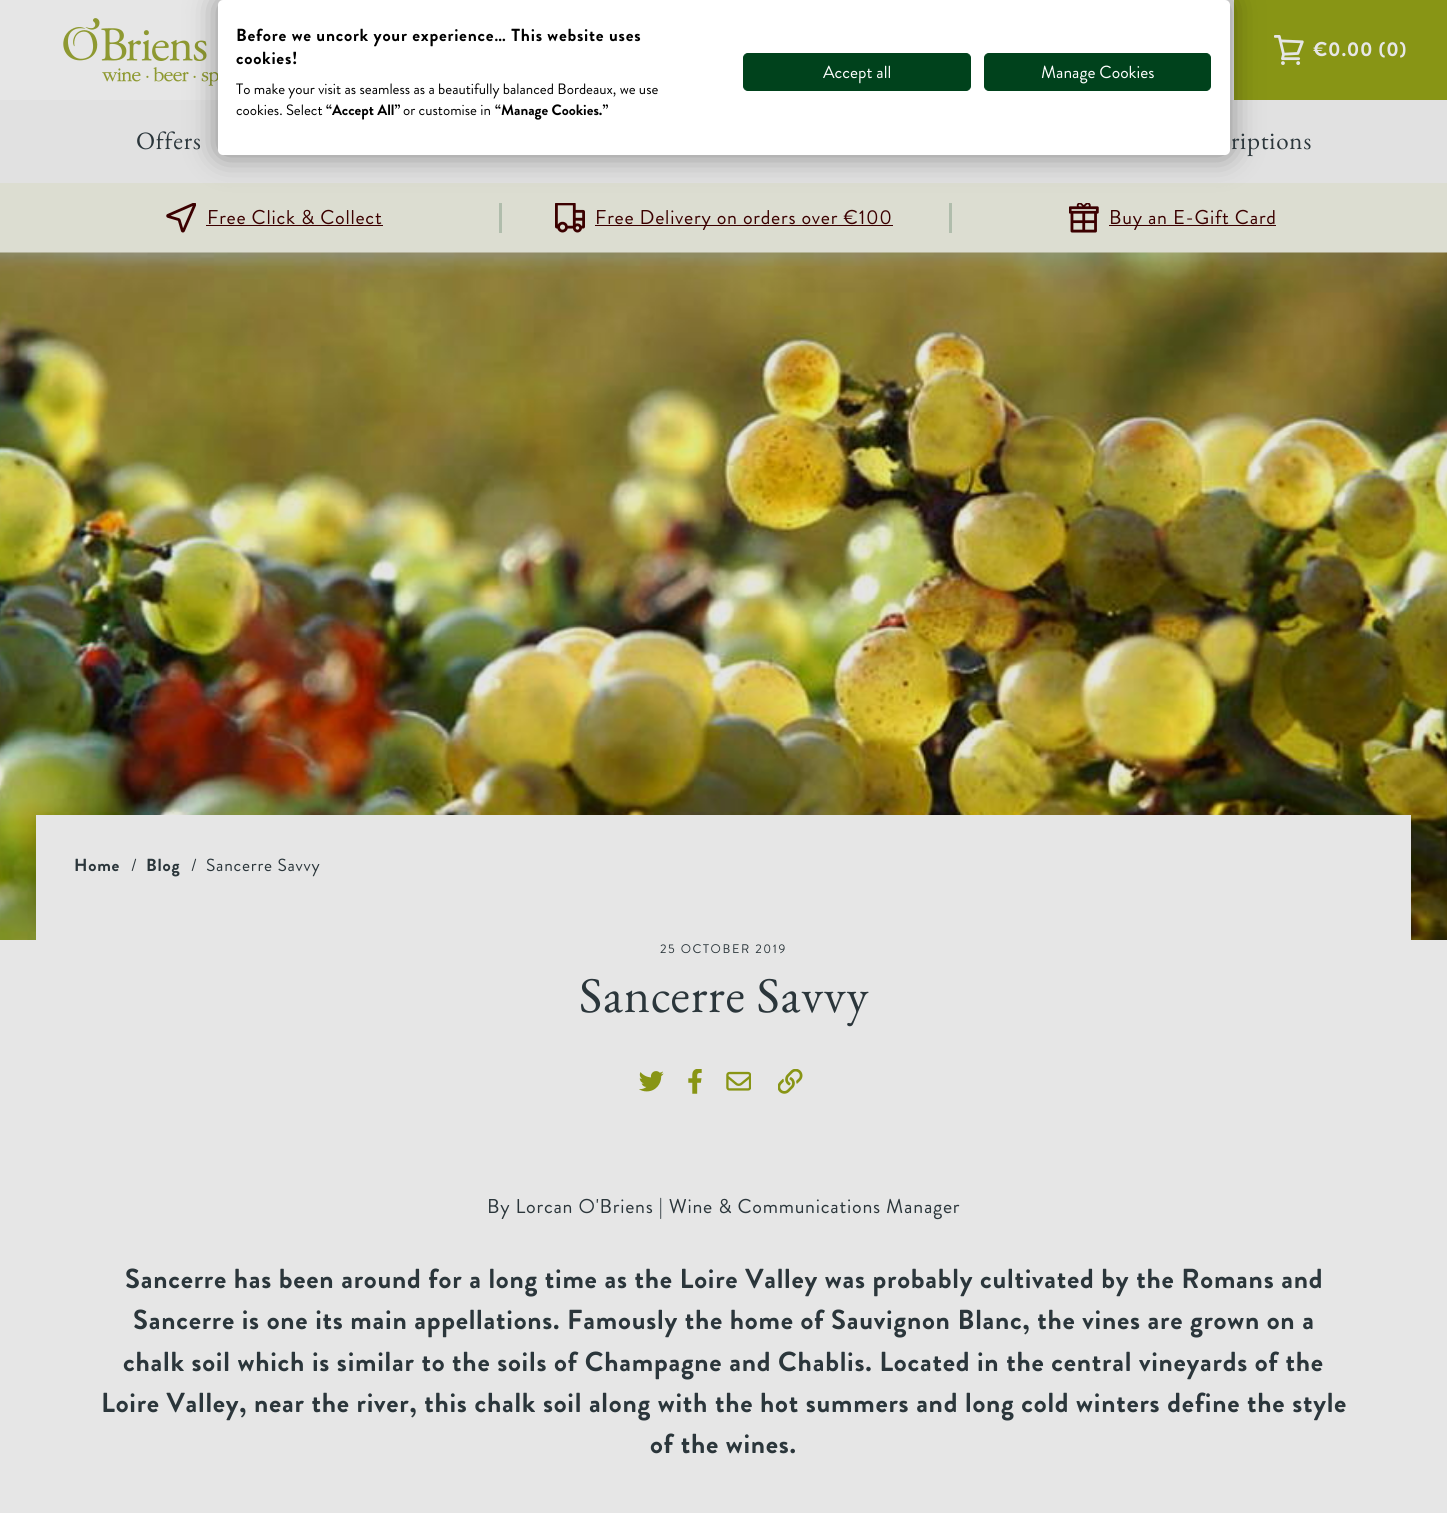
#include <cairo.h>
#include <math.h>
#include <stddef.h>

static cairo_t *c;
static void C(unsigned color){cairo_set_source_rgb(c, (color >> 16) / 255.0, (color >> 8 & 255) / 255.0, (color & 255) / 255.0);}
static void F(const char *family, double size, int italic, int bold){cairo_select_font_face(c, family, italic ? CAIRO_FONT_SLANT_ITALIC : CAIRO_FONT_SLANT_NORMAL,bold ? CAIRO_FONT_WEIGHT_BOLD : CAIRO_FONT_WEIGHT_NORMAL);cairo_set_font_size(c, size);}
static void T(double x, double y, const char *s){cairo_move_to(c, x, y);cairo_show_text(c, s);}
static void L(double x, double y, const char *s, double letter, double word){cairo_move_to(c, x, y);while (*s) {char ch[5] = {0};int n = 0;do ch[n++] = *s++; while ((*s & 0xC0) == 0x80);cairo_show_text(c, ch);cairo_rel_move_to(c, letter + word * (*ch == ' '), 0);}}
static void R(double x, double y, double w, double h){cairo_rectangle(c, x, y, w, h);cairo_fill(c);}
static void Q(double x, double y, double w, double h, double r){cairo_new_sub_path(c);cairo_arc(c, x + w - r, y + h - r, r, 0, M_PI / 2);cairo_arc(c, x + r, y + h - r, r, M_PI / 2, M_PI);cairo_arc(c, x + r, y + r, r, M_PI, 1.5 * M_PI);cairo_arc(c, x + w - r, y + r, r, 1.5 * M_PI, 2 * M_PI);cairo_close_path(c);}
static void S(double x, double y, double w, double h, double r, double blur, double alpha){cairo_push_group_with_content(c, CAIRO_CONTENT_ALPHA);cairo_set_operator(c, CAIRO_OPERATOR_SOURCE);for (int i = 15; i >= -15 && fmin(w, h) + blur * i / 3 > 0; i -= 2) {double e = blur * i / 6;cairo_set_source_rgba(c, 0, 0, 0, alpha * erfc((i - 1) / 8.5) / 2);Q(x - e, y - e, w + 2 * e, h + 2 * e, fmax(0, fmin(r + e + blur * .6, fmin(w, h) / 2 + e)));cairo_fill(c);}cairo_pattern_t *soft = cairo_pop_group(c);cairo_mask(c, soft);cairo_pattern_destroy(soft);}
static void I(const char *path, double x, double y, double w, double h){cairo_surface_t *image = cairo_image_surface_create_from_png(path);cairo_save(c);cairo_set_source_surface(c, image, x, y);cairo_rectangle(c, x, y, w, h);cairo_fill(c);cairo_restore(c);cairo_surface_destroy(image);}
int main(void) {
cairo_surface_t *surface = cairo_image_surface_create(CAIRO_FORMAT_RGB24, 1447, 1513);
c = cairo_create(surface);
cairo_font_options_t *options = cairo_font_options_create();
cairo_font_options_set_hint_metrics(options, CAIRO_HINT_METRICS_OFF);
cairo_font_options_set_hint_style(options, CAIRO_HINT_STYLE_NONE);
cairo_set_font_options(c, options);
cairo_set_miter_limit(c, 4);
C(0xe6e6e6);
cairo_paint(c);
I("1.png",63,18,155,68);
C(0x889515);
R(1234,0,213,100);
I("2.png",1274,35,30,30);
C(0xe1e1e1);
R(0,100,1447,83);
C(0xdcddd1);
R(0,183,1447,70);
C(0x000000);
S(218,0,1012,155,5,15,.4);
C(0xffffff);
Q(218,0,1012,155,5);
cairo_fill(c);
F("Brandon Grotesque",17.5,0,1);
C(0x000000);
L(236,41,"Before we uncork your experience… This website uses",.75,0);
L(236,64,"cookies!",.75,0);
F("Brandon Grotesque",15,0,0);
T(236,94,"To make your visit as seamless as a beautifully balanced Bordeaux, we use");
T(236,115,"cookies. Select");
F("Brandon Grotesque",15,0,1);
T(326,115,"“Accept All”");
F("Brandon Grotesque",15,0,0);
T(403,115,"or customise in");
F("Brandon Grotesque",15,0,1);
T(495,115,"“Manage Cookies.”");
C(0x00421c);
Q(743.5,53.5,227,37,4.5);
cairo_fill_preserve(c);
cairo_set_line_width(c,1);
cairo_stroke(c);
F("Brandon Grotesque",17.5,0,0);
C(0xffffff);
T(823,78,"Accept all");
C(0x00421c);
Q(984.5,53.5,226,37,4.5);
cairo_fill_preserve(c);
cairo_stroke(c);
C(0xffffff);
T(1041,78,"Manage Cookies");
F("Brandon Grotesque",20,0,1);
C(0xe6e6e6);
L(1313,56,"€0.00 (0)",.75,0);
F("EB Garamond",25,0,0);
C(0x2b363b);
L(136,149,"Offers",.75,0);
L(1231,149,"riptions",.75,0);
I("3.png",166,203,30,30);
F("Brandon Grotesque",20,0,0);
C(0x3b0000);
L(207,224,"Free Click & Collect",.75,0);
R(206,225,177,1);
C(0xb0bdac);
R(499,203,3,30);
I("4.png",555,203,30,30);
C(0x3b0000);
R(595,225,298,1);
L(595,224,"Free Delivery on orders over €100",.75,0);
C(0xb0bdac);
R(949,203,3,30);
I("5.png",1069,203,30,30);
C(0x3b0000);
R(1109,225,167,1);
L(1109,224,"Buy an E-Gift Card",.75,0);
I("6.png",0,252,1447,688);
C(0xe6e6e6);
R(36,815,1375,125);
F("Brandon Grotesque",17.5,0,1);
C(0x2b363b);
L(74,871,"Home",.75,0);
F("Brandon Grotesque",17.5,0,0);
L(131,871,"/",.75,0);
F("Brandon Grotesque",17.5,0,1);
L(146,871,"Blog",.75,0);
F("Brandon Grotesque",17.5,0,0);
L(191,871,"/",.75,0);
L(206,871,"Sancerre Savvy",.75,0);
F("Brandon Grotesque",12.5,0,0);
L(660,953,"25 OCTOBER 2019",1.6,0);
F("EB Garamond",50,0,0);
L(579,1012,"Sancerre Savvy",.75,0);
I("7.png",639,1071,25,21);
I("8.png",688,1069,14,25);
I("9.png",726,1071,25,20);
I("10.png",778,1069,25,25);
F("Brandon Grotesque",20,0,0);
L(487,1213,"By Lorcan O'Briens | Wine & Communications Manager",.75,0);
F("Brandon Grotesque",27.5,0,1);
L(125,1288,"Sancerre has been around for a long time as the Loire Valley was probably cultivated by the Romans and",.75,0);
L(133,1329,"Sancerre is one its main appellations. Famously the home of Sauvignon Blanc, the vines are grown on a",.75,0);
L(123,1371,"chalk soil which is similar to the soils of Champagne and Chablis. Located in the central vineyards of the",.75,0);
L(101,1412,"Loire Valley, near the river, this chalk soil along with the hot summers and long cold winters define the style",.75,0);
L(650,1453,"of the wines.",.75,0);
cairo_surface_write_to_png(surface, "o.png");
cairo_font_options_destroy(options);
cairo_destroy(c);
cairo_surface_destroy(surface);
return 0;
}
